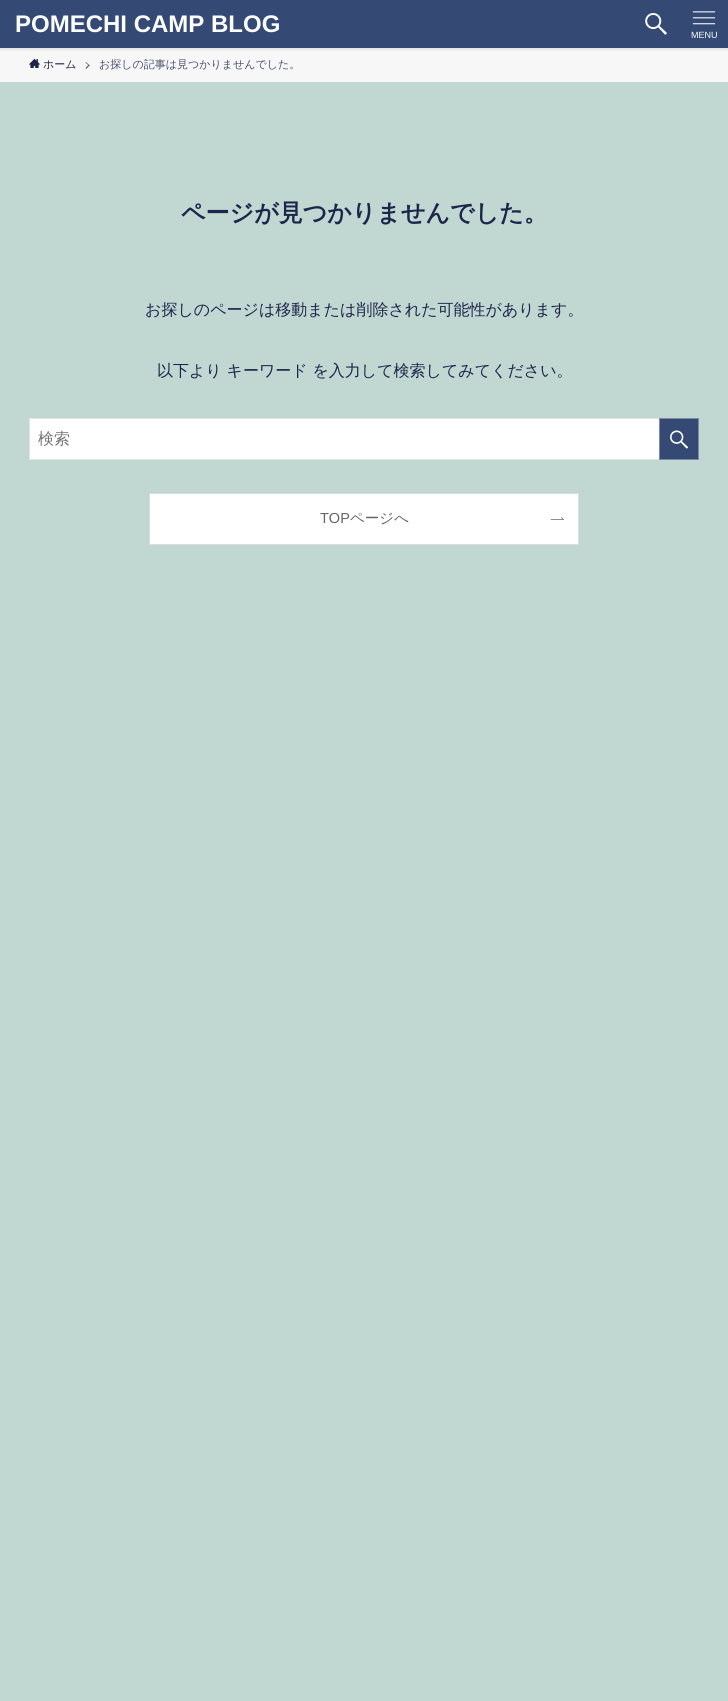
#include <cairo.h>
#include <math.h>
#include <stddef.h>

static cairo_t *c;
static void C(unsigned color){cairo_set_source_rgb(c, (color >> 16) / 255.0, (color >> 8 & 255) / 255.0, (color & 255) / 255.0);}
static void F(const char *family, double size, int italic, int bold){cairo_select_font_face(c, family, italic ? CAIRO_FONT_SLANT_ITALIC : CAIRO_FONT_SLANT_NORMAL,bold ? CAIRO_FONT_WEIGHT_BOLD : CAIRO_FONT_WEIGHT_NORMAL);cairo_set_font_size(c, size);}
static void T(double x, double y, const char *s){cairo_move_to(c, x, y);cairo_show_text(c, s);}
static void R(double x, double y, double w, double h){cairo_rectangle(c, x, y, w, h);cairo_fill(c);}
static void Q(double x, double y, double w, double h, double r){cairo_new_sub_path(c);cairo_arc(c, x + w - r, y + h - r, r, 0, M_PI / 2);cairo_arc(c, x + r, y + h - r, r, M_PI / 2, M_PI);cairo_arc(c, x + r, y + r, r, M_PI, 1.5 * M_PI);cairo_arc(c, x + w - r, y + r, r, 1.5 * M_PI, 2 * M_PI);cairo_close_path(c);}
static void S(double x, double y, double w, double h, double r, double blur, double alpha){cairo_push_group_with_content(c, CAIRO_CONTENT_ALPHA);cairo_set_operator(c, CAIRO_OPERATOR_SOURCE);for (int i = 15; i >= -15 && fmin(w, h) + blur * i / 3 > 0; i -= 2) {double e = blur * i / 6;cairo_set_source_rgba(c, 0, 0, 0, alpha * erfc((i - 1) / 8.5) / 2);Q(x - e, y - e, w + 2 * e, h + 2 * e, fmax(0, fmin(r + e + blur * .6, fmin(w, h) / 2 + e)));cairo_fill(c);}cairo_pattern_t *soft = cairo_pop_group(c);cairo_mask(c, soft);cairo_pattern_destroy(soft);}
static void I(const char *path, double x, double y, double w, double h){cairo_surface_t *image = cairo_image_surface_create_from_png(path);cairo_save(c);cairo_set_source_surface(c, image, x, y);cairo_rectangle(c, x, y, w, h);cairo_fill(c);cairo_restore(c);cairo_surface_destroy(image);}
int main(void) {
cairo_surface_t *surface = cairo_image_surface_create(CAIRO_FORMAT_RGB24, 728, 1701);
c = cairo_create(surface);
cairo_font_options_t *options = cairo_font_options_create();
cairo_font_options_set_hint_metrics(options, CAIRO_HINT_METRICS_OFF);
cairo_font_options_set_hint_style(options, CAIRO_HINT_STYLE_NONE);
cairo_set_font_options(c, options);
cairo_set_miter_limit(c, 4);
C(0xc0d7d2);
cairo_paint(c);
C(0xf7f7f7);
R(0,48,728,34);
C(0x000000);
S(0,1,728,48,0,2,.12);
C(0x344a74);
R(0,0,728,48);
F("Liberation Sans",24,0,1);
C(0xfcfeff);
T(15,32,"POMECHI CAMP BLOG");
I("1.png",645,13,22,22);
I("2.png",692,11,24,14);
F("Liberation Sans",9,0,0);
T(691,38,"MENU");
I("3.png",29,58,11,10);
F("WenQuanYi Zen Hei Medium",11,0,0);
C(0x1d254a);
T(43,68,"ホーム");
C(0x494f6d);
cairo_new_path(c);
cairo_move_to(c,86,62);
cairo_line_to(c,89.5,65.5);
cairo_line_to(c,89,66);
cairo_line_to(c,85.5,62.5);
cairo_close_path(c);
cairo_fill(c);
cairo_new_path(c);
cairo_move_to(c,89,64.5);
cairo_line_to(c,89.5,65.5);
cairo_line_to(c,86,69);
cairo_line_to(c,85.5,68);
cairo_close_path(c);
cairo_fill(c);
T(99,68,"お探しの記事は見つかりませんでした。");
F("WenQuanYi Zen Hei",24,0,1);
C(0x1d254a);
T(181,221,"ページが見つかりませんでした。");
F("WenQuanYi Zen Hei Medium",16,0,0);
T(145,315,"お探しのページは移動または削除された可能性があります。");
T(157,376,"以下より キーワード を入力して検索してみてください。");
C(0xffffff);
R(30,419,629,40);
cairo_rectangle(c,29.5,418.5,669,41);
C(0xe3e3e3);
cairo_set_line_width(c,1);
cairo_stroke(c);
C(0x757575);
T(38,444,"検索");
C(0x344a74);
cairo_rectangle(c,659.5,418.5,39,41);
cairo_fill_preserve(c);
C(0x7e899e);
cairo_stroke(c);
I("4.png",670,430,18,19);
cairo_rectangle(c,149.5,493.5,429,51);
C(0xdcdcdc);
cairo_stroke(c);
C(0xffffff);
R(150,494,428,50);
F("Liberation Sans",14.5,0,0);
C(0x666666);
T(320,523,"TOP");
F("WenQuanYi Zen Hei Medium",14.5,0,0);
T(350,523,"ページへ");
I("5.png",550,517,14,3);
cairo_surface_write_to_png(surface, "o.png");
cairo_font_options_destroy(options);
cairo_destroy(c);
cairo_surface_destroy(surface);
return 0;
}
